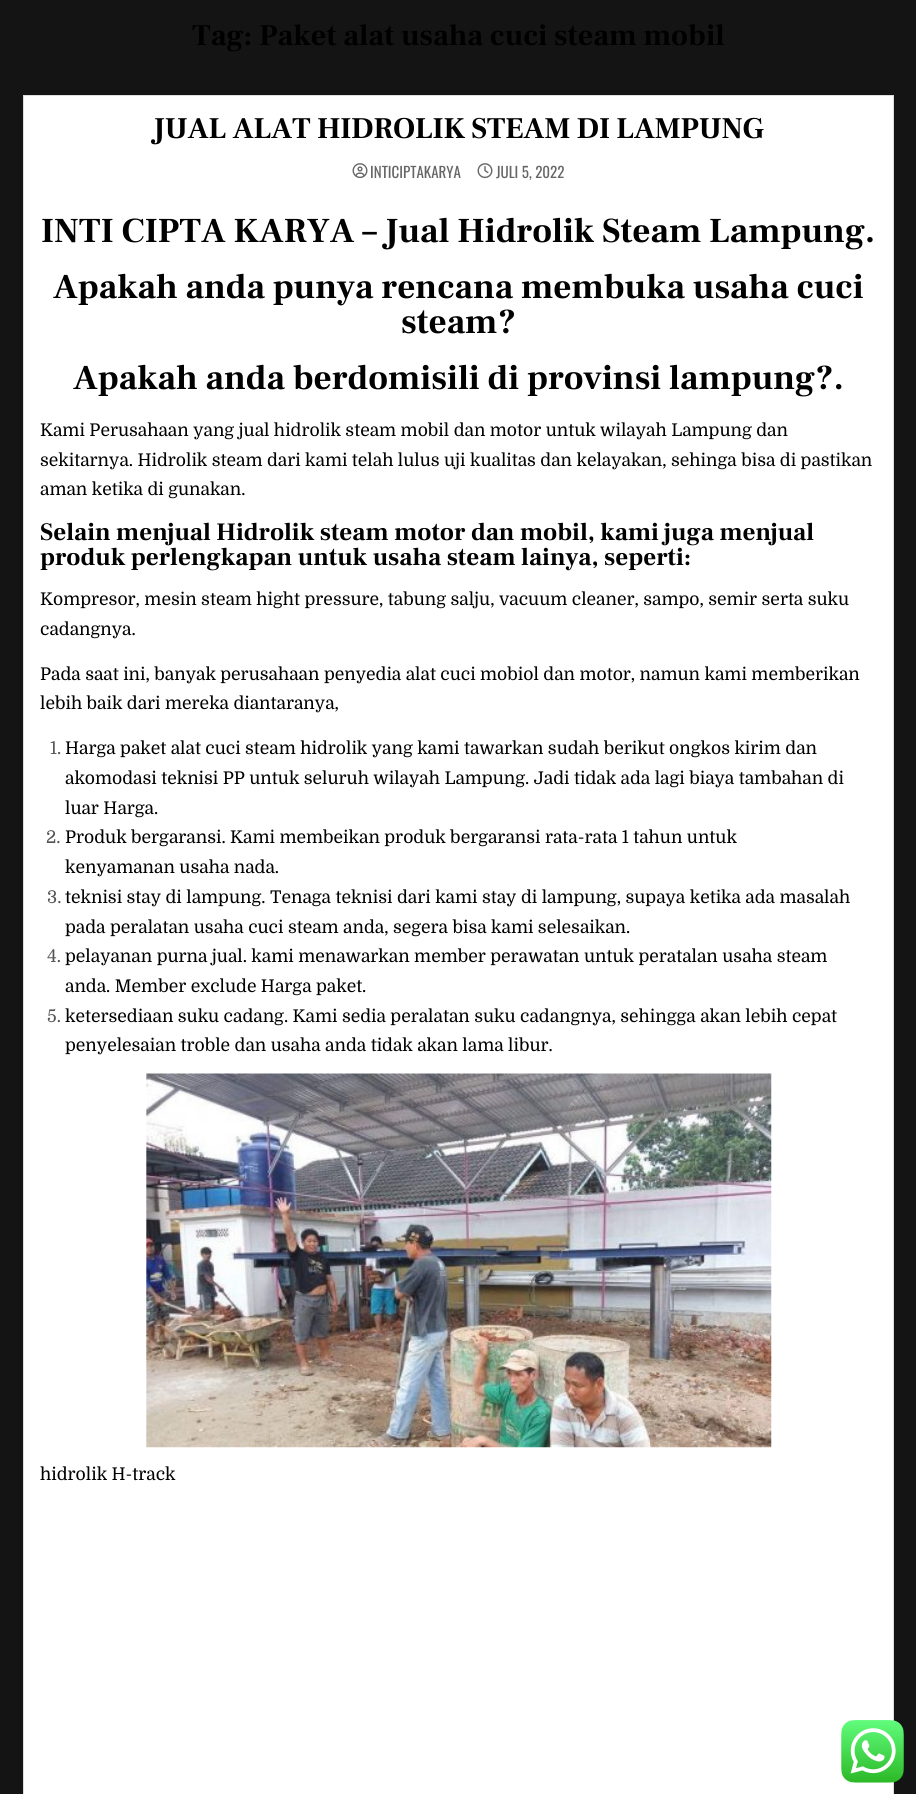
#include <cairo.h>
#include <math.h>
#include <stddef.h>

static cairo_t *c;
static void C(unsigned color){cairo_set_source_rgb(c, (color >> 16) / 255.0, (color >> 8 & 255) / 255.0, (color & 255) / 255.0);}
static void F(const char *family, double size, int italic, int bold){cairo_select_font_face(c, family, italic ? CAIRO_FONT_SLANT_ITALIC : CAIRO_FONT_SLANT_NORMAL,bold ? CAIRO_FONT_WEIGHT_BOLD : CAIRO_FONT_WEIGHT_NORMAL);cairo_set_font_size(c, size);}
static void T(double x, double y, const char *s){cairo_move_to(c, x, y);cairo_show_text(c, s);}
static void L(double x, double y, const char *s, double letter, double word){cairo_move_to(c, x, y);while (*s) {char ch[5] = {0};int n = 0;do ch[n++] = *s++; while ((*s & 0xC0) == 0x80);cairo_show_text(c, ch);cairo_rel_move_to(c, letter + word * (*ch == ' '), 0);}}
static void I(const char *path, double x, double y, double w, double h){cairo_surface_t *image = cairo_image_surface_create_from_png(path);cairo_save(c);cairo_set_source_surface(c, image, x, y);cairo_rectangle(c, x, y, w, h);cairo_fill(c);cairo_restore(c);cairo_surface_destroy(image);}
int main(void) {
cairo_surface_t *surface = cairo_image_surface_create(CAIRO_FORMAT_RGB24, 916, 1794);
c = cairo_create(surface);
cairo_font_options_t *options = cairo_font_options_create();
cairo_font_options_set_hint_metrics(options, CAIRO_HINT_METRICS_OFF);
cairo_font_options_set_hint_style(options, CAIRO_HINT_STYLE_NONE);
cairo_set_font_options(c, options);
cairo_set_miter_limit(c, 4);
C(0x141414);
cairo_paint(c);
F("Frank Ruhl Libre",30,0,1);
C(0x000000);
T(192,45,"Tag: Paket alat usaha cuci steam mobil");
C(0xffffff);
cairo_rectangle(c,23.5,95.5,870,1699);
cairo_fill_preserve(c);
C(0xdddddd);
cairo_set_line_width(c,1);
cairo_stroke(c);
C(0x000000);
L(153,138,"JUAL ALAT HIDROLIK STEAM DI LAMPUNG",-.25,0);
I("1.png",352,163,16,16);
F("Oswald",15,0,0);
C(0x666666);
T(370,178,"INTICIPTAKARYA");
I("2.png",477,163,16,16);
T(496,178,"JULI 5, 2022");
F("Frank Ruhl Libre",35,0,1);
C(0x000000);
T(41,242,"INTI CIPTA KARYA – Jual Hidrolik Steam Lampung.");
T(53,298,"Apakah anda punya rencana membuka usaha cuci");
T(401,333,"steam?");
T(73,389,"Apakah anda berdomisili di provinsi lampung?.");
F("Domine",17.5,0,0);
T(40,436,"Kami Perusahaan yang jual hidrolik steam mobil dan motor untuk wilayah Lampung dan");
T(40,466,"sekitarnya. Hidrolik steam dari kami telah lulus uji kualitas dan kelayakan, sehinga bisa di pastikan");
T(40,495,"aman ketika di gunakan.");
F("Frank Ruhl Libre",25,0,1);
T(40,540,"Selain menjual Hidrolik steam motor dan mobil, kami juga menjual");
T(40,565,"produk perlengkapan untuk usaha steam lainya, seperti:");
F("Domine",17.5,0,0);
T(40,605,"Kompresor, mesin steam hight pressure, tabung salju, vacuum cleaner, sampo, semir serta suku");
T(40,635,"cadangnya.");
T(40,680,"Pada saat ini, banyak perusahaan penyedia alat cuci mobiol dan motor, namun kami memberikan");
T(40,709,"lebih baik dari mereka diantaranya,");
C(0x555555);
T(50,754,"1.");
C(0x000000);
T(65,754,"Harga paket alat cuci steam hidrolik yang kami tawarkan sudah berikut ongkos kirim dan");
T(65,784,"akomodasi teknisi PP untuk seluruh wilayah Lampung. Jadi tidak ada lagi biaya tambahan di");
T(65,814,"luar Harga.");
C(0x555555);
T(46,843,"2.");
C(0x000000);
T(65,843,"Produk bergaransi. Kami membeikan produk bergaransi rata-rata 1 tahun untuk");
T(65,873,"kenyamanan usaha nada.");
C(0x555555);
T(47,903,"3.");
C(0x000000);
T(65,903,"teknisi stay di lampung. Tenaga teknisi dari kami stay di lampung, supaya ketika ada masalah");
T(65,933,"pada peralatan usaha cuci steam anda, segera bisa kami selesaikan.");
C(0x555555);
T(47,962,"4.");
C(0x000000);
T(65,962,"pelayanan purna jual. kami menawarkan member perawatan untuk peratalan usaha steam");
T(65,992,"anda. Member exclude Harga paket.");
C(0x555555);
T(47,1022,"5.");
C(0x000000);
T(65,1022,"ketersediaan suku cadang. Kami sedia peralatan suku cadangnya, sehingga akan lebih cepat");
T(65,1051,"penyelesaian troble dan usaha anda tidak akan lama libur.");
I("3.png",146,1073,626,375);
T(40,1480,"hidrolik H-track");
I("4.png",841,1720,63,63);
cairo_surface_write_to_png(surface, "o.png");
cairo_font_options_destroy(options);
cairo_destroy(c);
cairo_surface_destroy(surface);
return 0;
}
